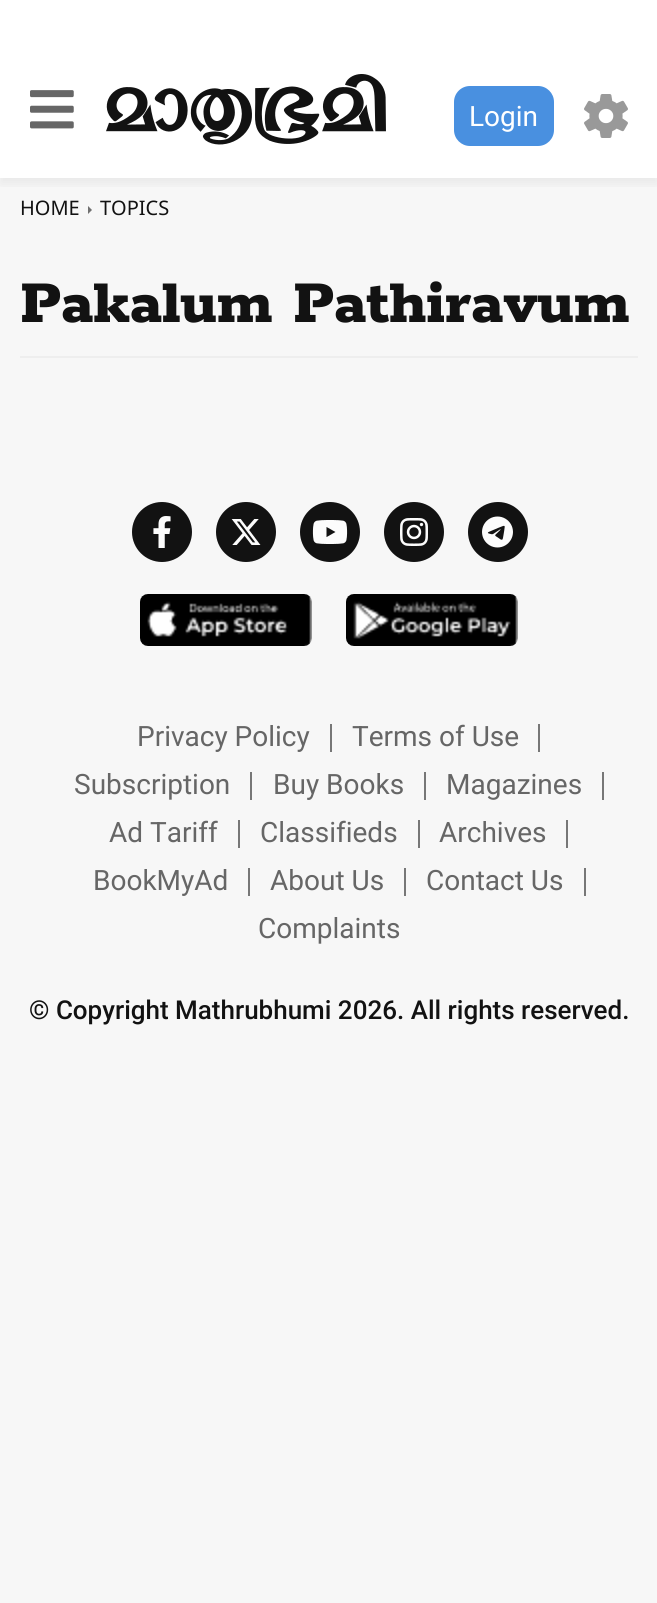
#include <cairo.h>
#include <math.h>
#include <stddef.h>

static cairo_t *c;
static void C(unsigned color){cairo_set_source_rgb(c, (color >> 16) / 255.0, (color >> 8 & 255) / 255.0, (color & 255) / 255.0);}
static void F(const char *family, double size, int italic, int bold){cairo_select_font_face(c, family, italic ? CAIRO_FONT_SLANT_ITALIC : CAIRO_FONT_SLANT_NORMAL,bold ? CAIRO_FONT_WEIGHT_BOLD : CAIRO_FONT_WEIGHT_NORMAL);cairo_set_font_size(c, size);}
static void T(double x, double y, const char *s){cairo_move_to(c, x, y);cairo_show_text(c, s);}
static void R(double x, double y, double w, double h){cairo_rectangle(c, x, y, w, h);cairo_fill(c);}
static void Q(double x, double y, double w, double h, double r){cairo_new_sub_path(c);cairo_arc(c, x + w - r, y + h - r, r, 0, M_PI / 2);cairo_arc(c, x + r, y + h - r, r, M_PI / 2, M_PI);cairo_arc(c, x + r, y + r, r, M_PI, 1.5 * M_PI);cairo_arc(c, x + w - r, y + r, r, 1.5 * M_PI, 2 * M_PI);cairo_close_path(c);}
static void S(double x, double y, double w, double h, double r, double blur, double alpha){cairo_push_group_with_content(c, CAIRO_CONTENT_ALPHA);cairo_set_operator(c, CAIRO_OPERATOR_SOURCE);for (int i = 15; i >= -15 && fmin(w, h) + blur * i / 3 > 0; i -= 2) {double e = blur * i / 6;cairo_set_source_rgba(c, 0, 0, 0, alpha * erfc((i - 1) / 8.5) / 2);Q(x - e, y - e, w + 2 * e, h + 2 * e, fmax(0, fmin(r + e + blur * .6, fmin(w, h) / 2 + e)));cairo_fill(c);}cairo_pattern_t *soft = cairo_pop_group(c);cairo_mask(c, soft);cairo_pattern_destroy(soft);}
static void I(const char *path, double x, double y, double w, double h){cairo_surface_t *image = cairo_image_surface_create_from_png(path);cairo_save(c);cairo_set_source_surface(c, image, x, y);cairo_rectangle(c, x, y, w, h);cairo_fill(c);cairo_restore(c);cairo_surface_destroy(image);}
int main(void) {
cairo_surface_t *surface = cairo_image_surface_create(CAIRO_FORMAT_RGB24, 657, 1603);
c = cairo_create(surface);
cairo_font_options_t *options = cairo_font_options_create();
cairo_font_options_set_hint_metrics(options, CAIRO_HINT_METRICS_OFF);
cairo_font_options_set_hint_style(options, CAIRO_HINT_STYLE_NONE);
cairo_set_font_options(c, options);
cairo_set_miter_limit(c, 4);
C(0xf7f7f7);
cairo_paint(c);
C(0xffffff);
R(0,0,657,178);
cairo_save(c);
cairo_rectangle(c,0,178,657,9);
cairo_clip(c);
C(0x000000);
S(0,48,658,136,0,6,.06);
cairo_restore(c);
I("1.png",30,90,44,39);
I("2.png",106,74,280,71);
C(0x4990e0);
Q(454,86,100,60,16);
cairo_fill(c);
F("Roboto",28,0,0);
C(0xffffff);
T(469,126,"Login");
I("3.png",584,94,44,44);
F("Noto Sans",20,0,0);
C(0x121212);
T(20,215,"HOME");
C(0x707070);
cairo_new_path(c);
cairo_move_to(c,88,206);
cairo_line_to(c,92,210);
cairo_line_to(c,88,214);
cairo_close_path(c);
cairo_fill(c);
C(0x121212);
T(100,215,"TOPICS");
F("Rokkitt ExtraBold",66,0,0);
T(20,322,"Pakalum Pathiravum");
C(0xeeeeee);
R(20,356,618,2);
C(0x121212);
cairo_new_path(c);
cairo_arc(c,162,532,30,0,2 * M_PI);
cairo_fill(c);
I("4.png",153,516,18,32);
cairo_arc(c,246,532,30,0,2 * M_PI);
cairo_fill(c);
I("5.png",231,519,30,26);
cairo_arc(c,330,532,30,0,2 * M_PI);
cairo_fill(c);
I("6.png",312,520,36,24);
cairo_arc(c,414,532,30,0,2 * M_PI);
cairo_fill(c);
I("7.png",400,518,28,28);
cairo_arc(c,498,532,30,0,2 * M_PI);
cairo_fill(c);
I("8.png",482,516,31,32);
I("9.png",140,594,172,52);
I("10.png",346,594,172,52);
C(0x777777);
R(330,724,2,28);
F("Roboto",28,0,0);
C(0x666666);
T(137,746,"Privacy Policy");
C(0x777777);
R(538,724,2,28);
C(0x666666);
T(352,746,"Terms of Use");
C(0x777777);
R(250,772,2,28);
C(0x666666);
T(74,794,"Subscription");
C(0x777777);
R(424,772,2,28);
C(0x666666);
T(273,794,"Buy Books");
C(0x777777);
R(602,772,2,28);
C(0x666666);
T(446,794,"Magazines");
C(0x777777);
R(238,820,2,28);
C(0x666666);
T(109,842,"Ad Tariff");
C(0x777777);
R(418,820,2,28);
C(0x666666);
T(260,842,"Classifieds");
C(0x777777);
R(566,820,2,28);
C(0x666666);
T(439,842,"Archives");
C(0x777777);
R(248,868,2,28);
C(0x666666);
T(93,890,"BookMyAd");
C(0x777777);
R(404,868,2,28);
C(0x666666);
T(270,890,"About Us");
C(0x777777);
R(584,868,2,28);
C(0x666666);
T(426,890,"Contact Us");
T(258,938,"Complaints");
F("Roboto Medium",26,0,0);
C(0x121212);
T(29,1019,"© Copyright Mathrubhumi 2026. All rights reserved.");
cairo_surface_write_to_png(surface, "o.png");
cairo_font_options_destroy(options);
cairo_destroy(c);
cairo_surface_destroy(surface);
return 0;
}
